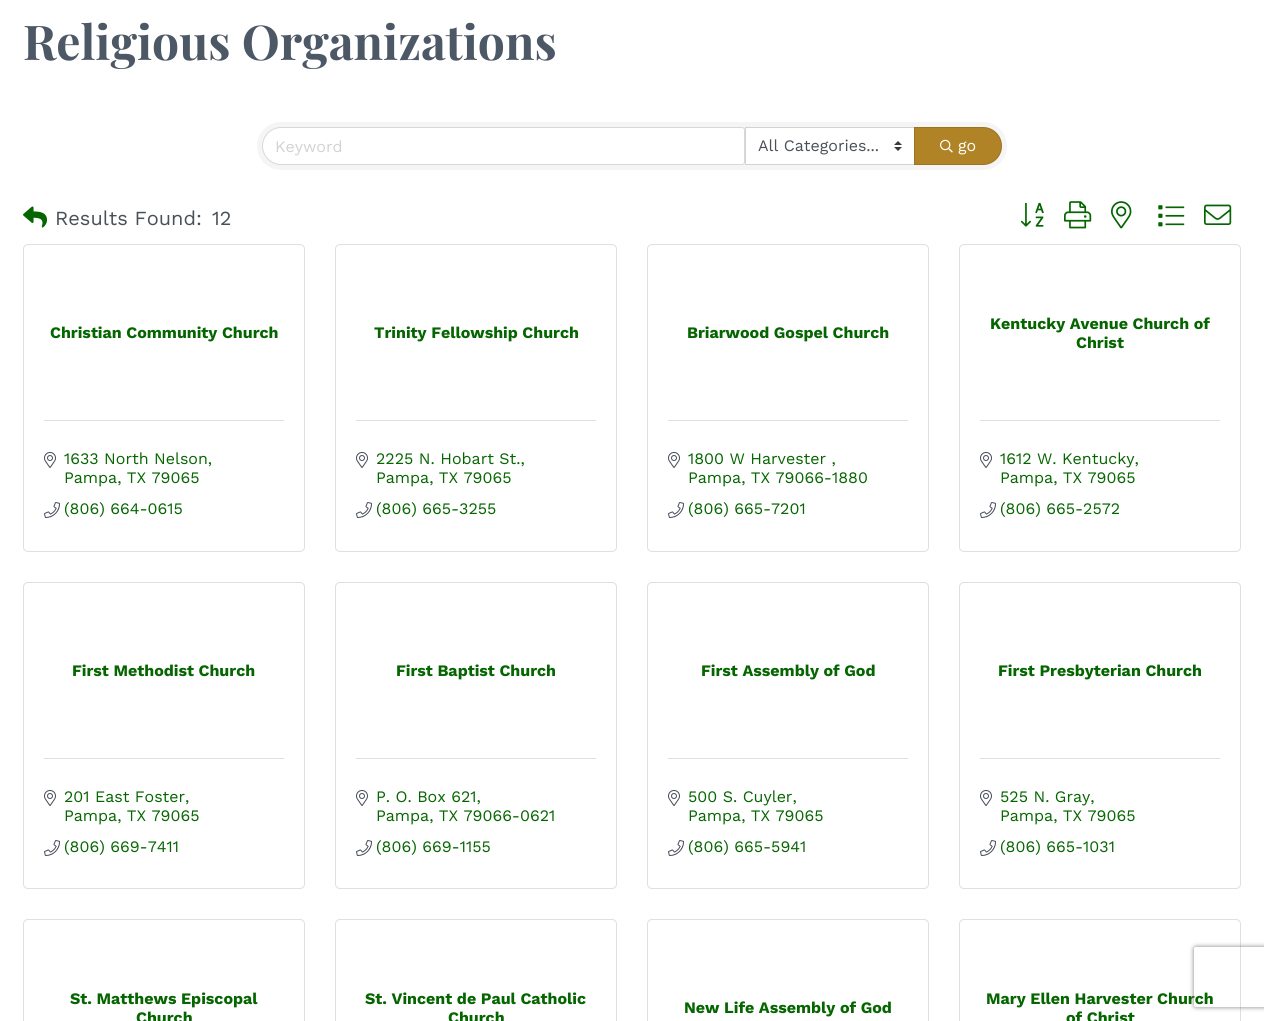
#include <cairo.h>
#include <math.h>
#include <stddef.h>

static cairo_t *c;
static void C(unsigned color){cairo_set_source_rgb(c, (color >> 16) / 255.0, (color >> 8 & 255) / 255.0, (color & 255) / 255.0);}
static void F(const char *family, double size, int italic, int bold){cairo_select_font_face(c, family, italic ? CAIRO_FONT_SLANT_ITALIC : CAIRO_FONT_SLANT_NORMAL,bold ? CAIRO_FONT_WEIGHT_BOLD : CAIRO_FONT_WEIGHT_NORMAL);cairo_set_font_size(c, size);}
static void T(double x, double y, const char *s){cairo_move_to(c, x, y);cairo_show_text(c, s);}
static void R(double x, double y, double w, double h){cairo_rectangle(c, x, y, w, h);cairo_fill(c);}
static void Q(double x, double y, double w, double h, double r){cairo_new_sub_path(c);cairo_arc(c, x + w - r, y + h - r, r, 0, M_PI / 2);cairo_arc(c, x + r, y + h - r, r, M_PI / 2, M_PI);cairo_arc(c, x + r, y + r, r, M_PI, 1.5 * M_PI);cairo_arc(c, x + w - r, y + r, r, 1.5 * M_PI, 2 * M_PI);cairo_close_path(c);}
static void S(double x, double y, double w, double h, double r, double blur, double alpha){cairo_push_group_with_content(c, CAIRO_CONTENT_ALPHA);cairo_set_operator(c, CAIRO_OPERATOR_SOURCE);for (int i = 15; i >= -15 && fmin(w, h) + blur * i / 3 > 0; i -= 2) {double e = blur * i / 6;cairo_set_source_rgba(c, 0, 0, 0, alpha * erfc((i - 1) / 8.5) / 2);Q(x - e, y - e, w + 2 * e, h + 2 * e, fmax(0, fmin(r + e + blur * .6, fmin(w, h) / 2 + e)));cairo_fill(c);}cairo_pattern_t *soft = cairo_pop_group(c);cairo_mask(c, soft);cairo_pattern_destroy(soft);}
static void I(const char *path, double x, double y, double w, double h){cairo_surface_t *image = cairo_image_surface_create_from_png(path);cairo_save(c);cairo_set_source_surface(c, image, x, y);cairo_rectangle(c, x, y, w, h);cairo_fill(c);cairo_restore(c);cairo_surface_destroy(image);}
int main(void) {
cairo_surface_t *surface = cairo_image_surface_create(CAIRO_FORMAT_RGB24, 1264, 1021);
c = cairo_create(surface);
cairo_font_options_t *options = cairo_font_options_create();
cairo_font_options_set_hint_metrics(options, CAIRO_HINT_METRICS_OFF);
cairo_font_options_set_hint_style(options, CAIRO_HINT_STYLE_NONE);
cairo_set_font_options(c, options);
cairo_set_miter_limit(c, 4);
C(0xffffff);
cairo_paint(c);
F("Playfair Display",48,0,1);
C(0x4d5866);
T(23,60,"Religious Organizations");
C(0xf5f5f5);
Q(257,122,750,48,24);
cairo_fill(c);
C(0xffffff);
cairo_new_path(c);
cairo_move_to(c,281,128);
cairo_line_to(c,742,128);
cairo_curve_to(c,743,128,744,129,744,130);
cairo_line_to(c,744,162);
cairo_curve_to(c,744,163,743,164,742,164);
cairo_line_to(c,281,164);
cairo_curve_to(c,271,164,263,156,263,146);
cairo_curve_to(c,263,136,271,128,281,128);
cairo_close_path(c);
cairo_fill(c);
cairo_new_path(c);
cairo_move_to(c,281,127.5);
cairo_line_to(c,742,127.5);
cairo_curve_to(c,743.5,127.5,744.5,128.5,744.5,130);
cairo_line_to(c,744.5,162);
cairo_curve_to(c,744.5,163.5,743.5,164.5,742,164.5);
cairo_line_to(c,281,164.5);
cairo_curve_to(c,271,164.5,262.5,156,262.5,146);
cairo_curve_to(c,262.5,136,271,127.5,281,127.5);
cairo_close_path(c);
cairo_set_source_rgba(c,0,0,0,0.12);
cairo_set_line_width(c,1);
cairo_stroke(c);
F("Work Sans",16,0,0);
C(0xd2d2d2);
T(275,152,"Keyword");
C(0xffffff);
R(746,128,168,36);
I("1.png",894,141,8,10);
cairo_rectangle(c,745.5,127.5,169,37);
C(0xced4da);
cairo_stroke(c);
C(0x495057);
T(758,151,"All Categories...");
C(0xb08326);
cairo_new_path(c);
cairo_move_to(c,914,127);
cairo_line_to(c,983,127);
cairo_curve_to(c,993.5,127,1002,135.5,1002,146);
cairo_curve_to(c,1002,156.5,993.5,165,983,165);
cairo_line_to(c,914,165);
cairo_close_path(c);
cairo_fill(c);
cairo_new_path(c);
cairo_move_to(c,914.5,127.5);
cairo_line_to(c,983,127.5);
cairo_curve_to(c,993,127.5,1001.5,136,1001.5,146);
cairo_curve_to(c,1001.5,156,993,164.5,983,164.5);
cairo_line_to(c,914.5,164.5);
cairo_close_path(c);
cairo_set_source_rgba(c,0,0,0,0.12);
cairo_stroke(c);
I("2.png",940,139,13,14);
C(0xffffff);
T(958,151,"go");
I("3.png",23,206,24,22);
F("Work Sans",20,0,0);
C(0x495057);
T(55,225,"Results Found:");
T(212,225,"12");
I("4.png",1020,202,24,25);
I("5.png",1064,201,28,28);
I("6.png",1111,201,21,28);
I("7.png",1158,205,27,22);
I("8.png",1204,204,28,21);
Q(23.5,244.5,281,307,4.5);
C(0xdfdfdf);
cairo_stroke(c);
F("Work Sans",16,0,1);
C(0x056500);
T(50,338,"Christian Community Church");
C(0xdfdfdf);
R(44,420,240,1);
I("9.png",44,452,12,16);
F("Work Sans",16,0,0);
C(0x056500);
T(64,464,"1633 North Nelson,");
T(64,483,"Pampa, TX 79065");
I("10.png",44,502,16,16);
T(64,514,"(806) 664-0615");
Q(335.5,244.5,281,307,4.5);
C(0xdfdfdf);
cairo_stroke(c);
F("Work Sans",16,0,1);
C(0x056500);
T(374,338,"Trinity Fellowship Church");
C(0xdfdfdf);
R(356,420,240,1);
I("9.png",356,452,12,16);
F("Work Sans",16,0,0);
C(0x056500);
T(376,464,"2225 N. Hobart St.,");
T(376,483,"Pampa, TX 79065");
I("10.png",356,502,16,16);
T(376,514,"(806) 665-3255");
Q(647.5,244.5,281,307,4.5);
C(0xdfdfdf);
cairo_stroke(c);
F("Work Sans",16,0,1);
C(0x056500);
T(687,338,"Briarwood Gospel Church");
C(0xdfdfdf);
R(668,420,240,1);
I("9.png",668,452,12,16);
F("Work Sans",16,0,0);
C(0x056500);
T(688,464,"1800 W Harvester ,");
T(688,483,"Pampa, TX 79066-1880");
I("10.png",668,502,16,16);
T(688,514,"(806) 665-7201");
Q(959.5,244.5,281,307,4.5);
C(0xdfdfdf);
cairo_stroke(c);
F("Work Sans",16,0,1);
C(0x056500);
T(990,329,"Kentucky Avenue Church of");
T(1076,348,"Christ");
C(0xdfdfdf);
R(980,420,240,1);
I("9.png",980,452,12,16);
F("Work Sans",16,0,0);
C(0x056500);
T(1000,464,"1612 W. Kentucky,");
T(1000,483,"Pampa, TX 79065");
I("10.png",980,502,16,16);
T(1000,514,"(806) 665-2572");
Q(23.5,582.5,281,306,4.5);
C(0xdfdfdf);
cairo_stroke(c);
F("Work Sans",16,0,1);
C(0x056500);
T(72,676,"First Methodist Church");
C(0xdfdfdf);
R(44,758,240,1);
I("9.png",44,790,12,16);
F("Work Sans",16,0,0);
C(0x056500);
T(64,802,"201 East Foster,");
T(64,821,"Pampa, TX 79065");
I("10.png",44,840,16,16);
T(64,852,"(806) 669-7411");
Q(335.5,582.5,281,306,4.5);
C(0xdfdfdf);
cairo_stroke(c);
F("Work Sans",16,0,1);
C(0x056500);
T(396,676,"First Baptist Church");
C(0xdfdfdf);
R(356,758,240,1);
I("9.png",356,790,12,16);
F("Work Sans",16,0,0);
C(0x056500);
T(376,802,"P. O. Box 621,");
T(376,821,"Pampa, TX 79066-0621");
I("10.png",356,840,16,16);
T(376,852,"(806) 669-1155");
Q(647.5,582.5,281,306,4.5);
C(0xdfdfdf);
cairo_stroke(c);
F("Work Sans",16,0,1);
C(0x056500);
T(701,676,"First Assembly of God");
C(0xdfdfdf);
R(668,758,240,1);
I("9.png",668,790,12,16);
F("Work Sans",16,0,0);
C(0x056500);
T(688,802,"500 S. Cuyler,");
T(688,821,"Pampa, TX 79065");
I("10.png",668,840,16,16);
T(688,852,"(806) 665-5941");
Q(959.5,582.5,281,306,4.5);
C(0xdfdfdf);
cairo_stroke(c);
F("Work Sans",16,0,1);
C(0x056500);
T(998,676,"First Presbyterian Church");
C(0xdfdfdf);
R(980,758,240,1);
I("9.png",980,790,12,16);
F("Work Sans",16,0,0);
C(0x056500);
T(1000,802,"525 N. Gray,");
T(1000,821,"Pampa, TX 79065");
I("10.png",980,840,16,16);
T(1000,852,"(806) 665-1031");
Q(23.5,919.5,281,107,4.5);
C(0xdfdfdf);
cairo_stroke(c);
F("Work Sans",16,0,1);
C(0x056500);
T(70,1004,"St. Matthews Episcopal");
T(136,1023,"Church");
Q(335.5,919.5,281,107,4.5);
C(0xdfdfdf);
cairo_stroke(c);
C(0x056500);
T(365,1004,"St. Vincent de Paul Catholic");
T(448,1023,"Church");
Q(647.5,919.5,281,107,4.5);
C(0xdfdfdf);
cairo_stroke(c);
C(0x056500);
T(684,1013,"New Life Assembly of God");
Q(959.5,919.5,281,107,4.5);
C(0xdfdfdf);
cairo_stroke(c);
C(0x056500);
T(986,1004,"Mary Ellen Harvester Church");
T(1066,1023,"of Christ");
cairo_save(c);
cairo_set_fill_rule(c,CAIRO_FILL_RULE_EVEN_ODD);
cairo_new_path(c);
cairo_move_to(c,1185,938);
cairo_line_to(c,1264,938);
cairo_line_to(c,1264,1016);
cairo_line_to(c,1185,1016);
cairo_close_path(c);
cairo_move_to(c,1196,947);
cairo_line_to(c,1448,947);
cairo_curve_to(c,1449,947,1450,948,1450,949);
cairo_line_to(c,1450,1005);
cairo_curve_to(c,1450,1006,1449,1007,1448,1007);
cairo_line_to(c,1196,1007);
cairo_curve_to(c,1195,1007,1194,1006,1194,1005);
cairo_line_to(c,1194,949);
cairo_curve_to(c,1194,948,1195,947,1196,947);
cairo_close_path(c);
cairo_clip(c);
C(0x808080);
S(1194,947,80,60,2,2.5,1);
cairo_restore(c);
cairo_surface_write_to_png(surface, "o.png");
cairo_font_options_destroy(options);
cairo_destroy(c);
cairo_surface_destroy(surface);
return 0;
}
